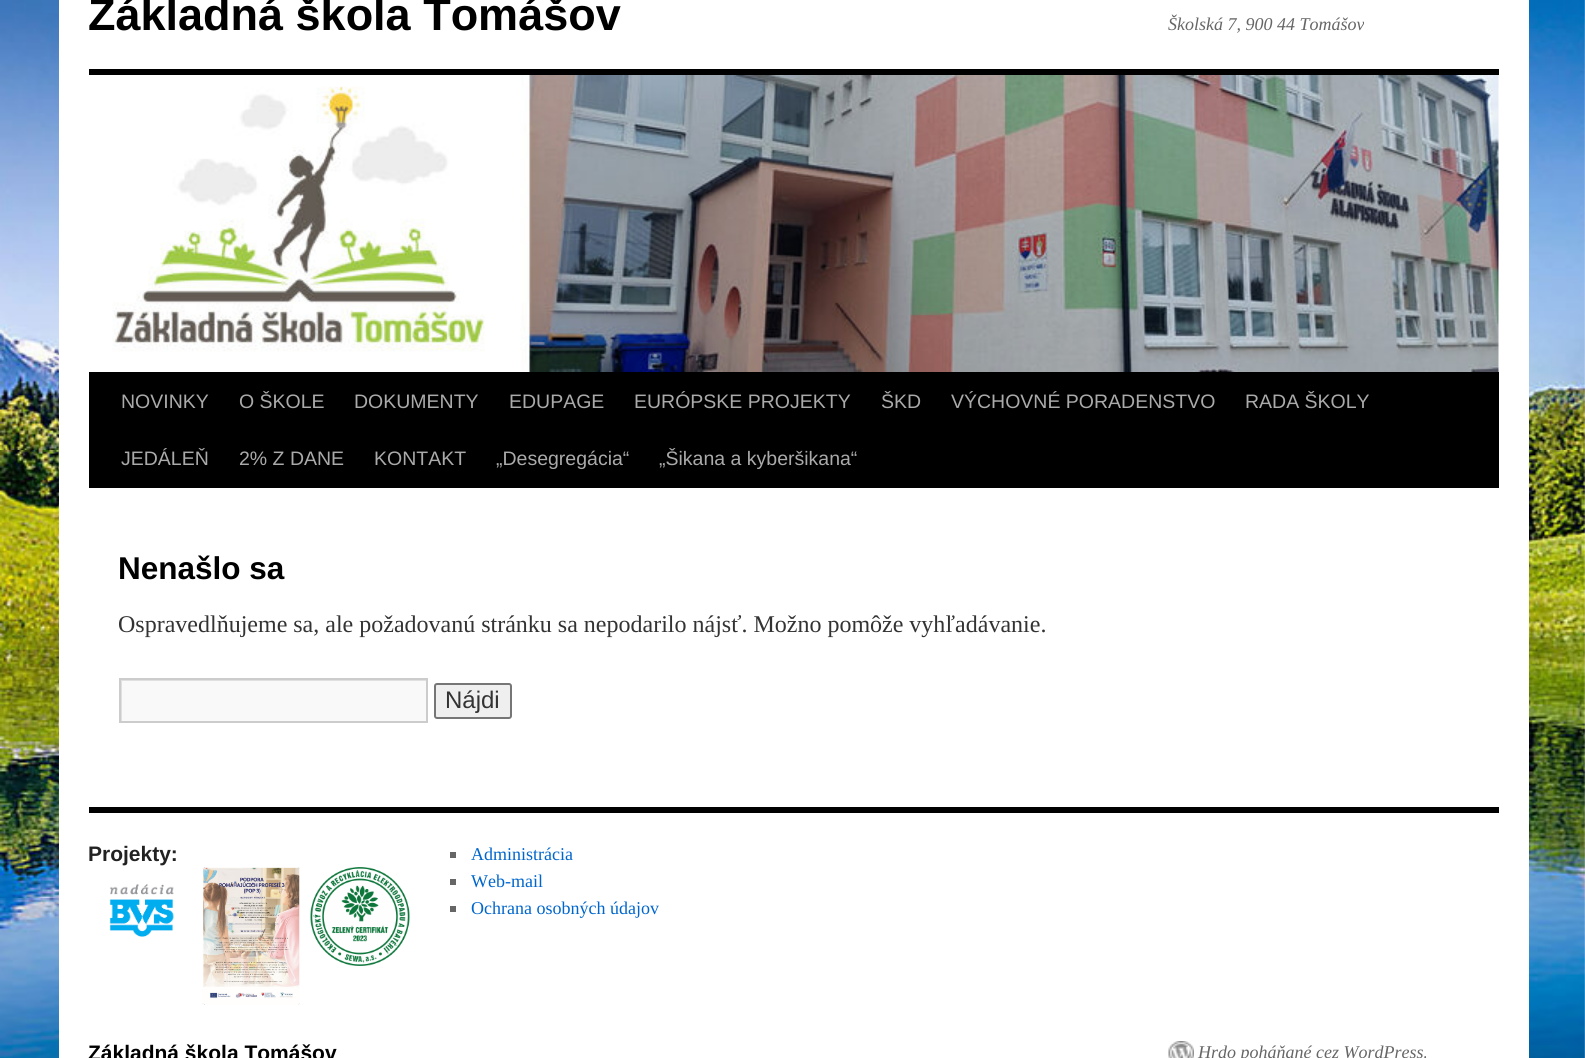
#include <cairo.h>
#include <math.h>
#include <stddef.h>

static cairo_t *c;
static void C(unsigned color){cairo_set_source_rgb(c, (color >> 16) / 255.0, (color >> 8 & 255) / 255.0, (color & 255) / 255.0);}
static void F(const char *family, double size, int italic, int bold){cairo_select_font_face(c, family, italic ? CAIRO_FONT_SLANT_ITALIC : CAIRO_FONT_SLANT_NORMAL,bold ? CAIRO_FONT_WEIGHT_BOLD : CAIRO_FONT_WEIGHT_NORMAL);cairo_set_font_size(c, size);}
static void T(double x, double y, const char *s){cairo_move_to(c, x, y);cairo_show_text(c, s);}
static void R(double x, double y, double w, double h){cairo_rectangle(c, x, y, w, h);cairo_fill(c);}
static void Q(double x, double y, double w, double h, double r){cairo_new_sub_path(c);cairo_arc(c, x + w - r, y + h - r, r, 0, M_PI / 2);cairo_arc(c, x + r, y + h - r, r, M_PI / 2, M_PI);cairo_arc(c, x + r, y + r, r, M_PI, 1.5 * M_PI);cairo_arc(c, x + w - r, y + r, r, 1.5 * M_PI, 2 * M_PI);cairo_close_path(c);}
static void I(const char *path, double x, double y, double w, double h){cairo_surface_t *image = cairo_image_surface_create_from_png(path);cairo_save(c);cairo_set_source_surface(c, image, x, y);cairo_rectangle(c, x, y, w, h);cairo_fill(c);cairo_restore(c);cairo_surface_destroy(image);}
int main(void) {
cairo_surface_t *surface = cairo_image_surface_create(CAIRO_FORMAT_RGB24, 1585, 1058);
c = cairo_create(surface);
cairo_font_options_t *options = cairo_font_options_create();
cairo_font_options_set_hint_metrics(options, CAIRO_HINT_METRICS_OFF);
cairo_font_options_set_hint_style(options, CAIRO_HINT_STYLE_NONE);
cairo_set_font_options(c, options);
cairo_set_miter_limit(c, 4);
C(0xffffff);
cairo_paint(c);
I("1.png",0,0,1585,1058);
C(0xffffff);
R(59,0,1470,1058);
F("Liberation Sans",45,0,1);
C(0x000000);
T(88,30,"Základná škola Tomášov");
F("Liberation Serif",18,1,0);
C(0x666666);
T(1168,30,"Školská 7, 900 44 Tomášov");
C(0x000000);
R(89,69,1410,6);
R(89,372,1410,116);
I("2.png",112,75,1387,297);
F("Liberation Sans",19.5,0,0);
C(0xaaaaaa);
T(121,408,"NOVINKY");
T(239,408,"O ŠKOLE");
T(354,408,"DOKUMENTY");
T(509,408,"EDUPAGE");
T(634,408,"EURÓPSKE PROJEKTY");
T(881,408,"ŠKD");
T(951,408,"VÝCHOVNÉ PORADENSTVO");
T(1245,408,"RADA ŠKOLY");
T(121,465,"JEDÁLEŇ");
T(239,465,"2% Z DANE");
T(374,465,"KONTAKT");
T(496,465,"„Desegregácia“");
T(659,465,"„Šikana a kyberšikana“");
F("Liberation Sans",31.5,0,1);
C(0x000000);
T(118,579,"Nenašlo sa");
F("Liberation Serif",24,0,0);
C(0x333333);
T(118,632,"Ospravedlňujeme sa, ale požadovanú stránku sa nepodarilo nájsť. Možno pomôže vyhľadávanie.");
C(0xf9f9f9);
R(122,681,304,40);
cairo_save(c);
cairo_rectangle(c,120,680,306,42);
cairo_clip(c);
C(0xe0e0e0);
cairo_set_fill_rule(c,CAIRO_FILL_RULE_EVEN_ODD);
cairo_new_path(c);
cairo_move_to(c,-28,531);
cairo_line_to(c,574,531);
cairo_line_to(c,574,870);
cairo_line_to(c,-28,870);
cairo_close_path(c);
cairo_move_to(c,122,681);
cairo_line_to(c,428,681);
cairo_line_to(c,428,723);
cairo_line_to(c,122,723);
cairo_close_path(c);
cairo_fill(c);
cairo_restore(c);
cairo_rectangle(c,120,679,307,43);
C(0xcccccc);
cairo_stroke(c);
C(0xefefef);
Q(435,684,76,34,2);
cairo_fill_preserve(c);
C(0x767676);
cairo_stroke(c);
F("Liberation Sans",24,0,0);
C(0x333333);
T(445,708,"Nájdi");
C(0x000000);
R(89,807,1410,6);
F("Liberation Sans",21,0,1);
C(0x222222);
T(88,861,"Projekty:");
I("3.png",109,884,65,53);
I("4.png",202,867,98,138);
I("5.png",310,867,100,99);
C(0x666666);
R(450,852,6,6);
F("Liberation Serif",18,0,0);
C(0x0066cc);
T(471,860,"Administrácia");
C(0x666666);
R(450,879,6,6);
C(0x0066cc);
T(471,887,"Web-mail");
C(0x666666);
R(450,906,6,6);
C(0x0066cc);
T(471,914,"Ochrana osobných údajov");
F("Liberation Sans",21,0,1);
C(0x000000);
T(88,1060,"Základná škola Tomášov");
I("6.png",1168,1041,26,17);
F("Liberation Serif",18,1,0);
C(0x666666);
T(1198,1058,"Hrdo poháňané cez WordPress.");
cairo_surface_write_to_png(surface, "o.png");
cairo_font_options_destroy(options);
cairo_destroy(c);
cairo_surface_destroy(surface);
return 0;
}
